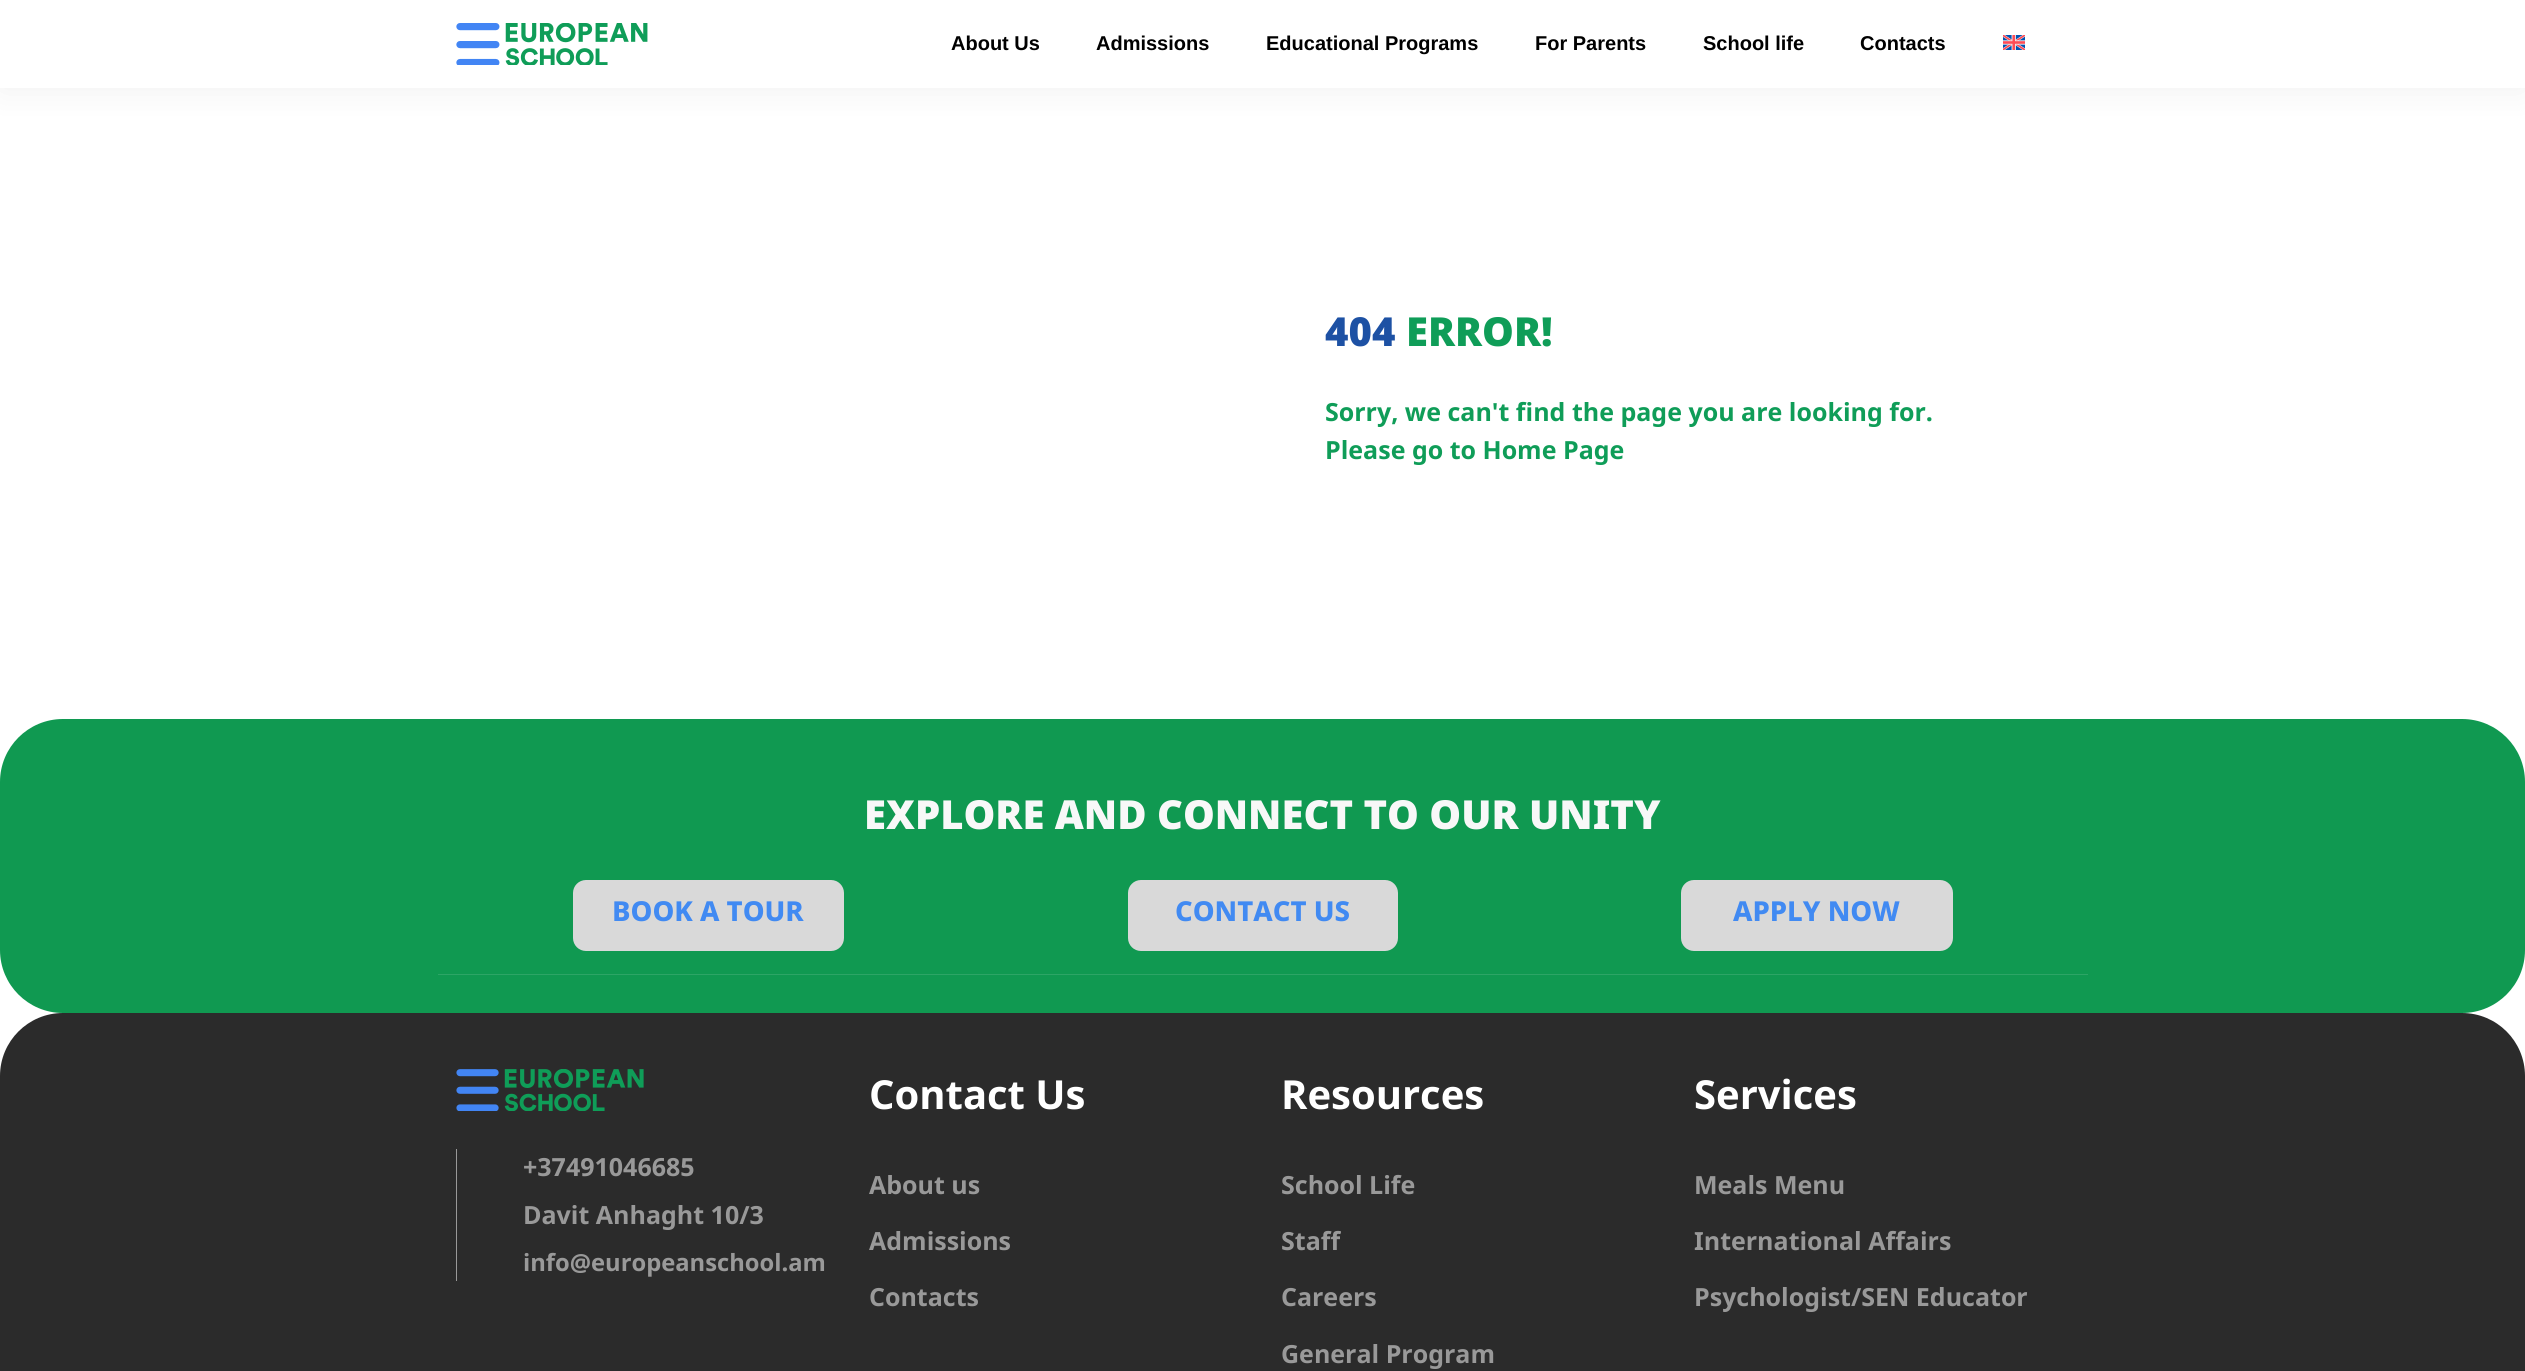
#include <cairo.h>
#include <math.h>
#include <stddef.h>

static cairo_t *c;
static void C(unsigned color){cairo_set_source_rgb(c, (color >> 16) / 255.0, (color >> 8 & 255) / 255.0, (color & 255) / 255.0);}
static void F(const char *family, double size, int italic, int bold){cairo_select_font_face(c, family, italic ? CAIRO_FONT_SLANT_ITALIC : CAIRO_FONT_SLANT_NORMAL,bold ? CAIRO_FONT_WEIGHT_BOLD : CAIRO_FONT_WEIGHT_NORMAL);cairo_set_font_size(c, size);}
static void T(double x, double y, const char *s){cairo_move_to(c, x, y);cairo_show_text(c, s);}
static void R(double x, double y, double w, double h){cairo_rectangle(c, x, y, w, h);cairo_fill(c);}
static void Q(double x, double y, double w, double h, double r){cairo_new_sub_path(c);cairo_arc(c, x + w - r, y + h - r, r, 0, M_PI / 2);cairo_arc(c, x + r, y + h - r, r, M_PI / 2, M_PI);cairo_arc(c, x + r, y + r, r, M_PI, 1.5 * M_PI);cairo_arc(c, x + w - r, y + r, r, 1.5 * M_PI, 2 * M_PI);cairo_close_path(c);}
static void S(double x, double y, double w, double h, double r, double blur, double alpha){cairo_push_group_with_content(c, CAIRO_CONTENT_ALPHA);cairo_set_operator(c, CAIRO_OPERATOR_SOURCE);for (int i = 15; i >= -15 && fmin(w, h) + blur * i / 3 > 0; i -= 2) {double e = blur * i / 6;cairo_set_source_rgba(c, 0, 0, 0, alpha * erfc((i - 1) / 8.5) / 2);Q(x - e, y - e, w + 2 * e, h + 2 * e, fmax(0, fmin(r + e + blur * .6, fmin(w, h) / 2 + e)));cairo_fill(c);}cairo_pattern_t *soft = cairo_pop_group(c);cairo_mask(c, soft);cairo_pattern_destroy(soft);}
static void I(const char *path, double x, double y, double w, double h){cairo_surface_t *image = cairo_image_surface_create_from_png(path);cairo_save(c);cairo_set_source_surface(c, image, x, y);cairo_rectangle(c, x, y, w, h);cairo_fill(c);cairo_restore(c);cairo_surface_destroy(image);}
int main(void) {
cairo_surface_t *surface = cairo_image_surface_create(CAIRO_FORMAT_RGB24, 2525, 1371);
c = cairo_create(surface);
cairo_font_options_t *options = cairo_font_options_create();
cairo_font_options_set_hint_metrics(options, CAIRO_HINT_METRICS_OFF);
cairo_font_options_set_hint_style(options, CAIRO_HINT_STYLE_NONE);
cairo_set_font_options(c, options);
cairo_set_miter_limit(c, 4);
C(0xffffff);
cairo_paint(c);
C(0x000000);
S(0,5,2525,88,0,15.5,.05);
C(0xffffff);
R(0,0,2525,88);
I("1.png",456,23,192,42);
F("Liberation Sans",20,0,1);
C(0x000000);
T(951,50,"About Us");
T(1096,50,"Admissions");
T(1266,50,"Educational Programs");
T(1535,50,"For Parents");
T(1703,50,"School life");
T(1860,50,"Contacts");
I("2.png",2003,35,22,15);
F("Noto Sans Armenian Black",40,0,0);
C(0x1d51a4);
T(1325,346,"404");
C(0x0f9d58);
T(1406,346,"ERROR!");
F("Noto Sans Armenian",25,0,1);
T(1325,421,"Sorry, we can't find the page you are looking for.");
T(1325,459,"Please go to Home Page");
C(0x109951);
Q(0,719,2525,294,63);
cairo_fill(c);
F("Noto Sans Armenian Black",40,0,0);
C(0xf8f8f8);
T(864,829,"EXPLORE AND CONNECT TO OUR UNITY");
C(0x2da566);
R(438,974,1650,1);
C(0xd9d9d9);
Q(573,880,271,71,13);
cairo_fill(c);
F("Noto Sans Armenian ExtraBold",27.5,0,0);
C(0x418af2);
T(612,921,"BOOK A TOUR");
C(0xd9d9d9);
Q(1128,880,270,71,13);
cairo_fill(c);
C(0x418af2);
T(1175,921,"CONTACT US");
C(0xd9d9d9);
Q(1681,880,272,71,13);
cairo_fill(c);
C(0x418af2);
T(1733,921,"APPLY NOW");
C(0x2b2b2b);
Q(0,1013,2525,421,63);
cairo_fill(c);
I("3.png",456,1069,188,42);
C(0x999999);
R(456,1149,1,132);
F("Noto Sans Armenian",25,0,1);
T(523,1176,"+37491046685");
T(523,1224,"Davit Anhaght 10/3");
F("Noto Sans Armenian",23.75,0,1);
T(523,1271,"info@europeanschool.am");
F("Noto Sans Armenian",40,0,1);
C(0xffffff);
T(869,1109,"Contact Us");
F("Noto Sans Armenian",25,0,1);
C(0x999999);
T(869,1194,"About us");
T(869,1250,"Admissions");
T(869,1306,"Contacts");
F("Noto Sans Armenian",40,0,1);
C(0xffffff);
T(1281,1109,"Resources");
F("Noto Sans Armenian",25,0,1);
C(0x999999);
T(1281,1194,"School Life");
T(1281,1250,"Staff");
T(1281,1306,"Careers");
T(1281,1363,"General Program");
F("Noto Sans Armenian",40,0,1);
C(0xffffff);
T(1694,1109,"Services");
F("Noto Sans Armenian",25,0,1);
C(0x999999);
T(1694,1194,"Meals Menu");
T(1694,1250,"International Affairs");
T(1694,1306,"Psychologist/SEN Educator");
cairo_surface_write_to_png(surface, "o.png");
cairo_font_options_destroy(options);
cairo_destroy(c);
cairo_surface_destroy(surface);
return 0;
}
